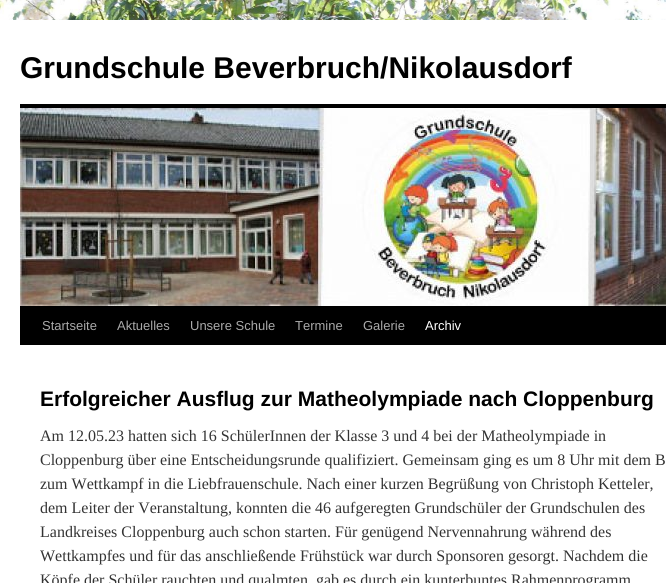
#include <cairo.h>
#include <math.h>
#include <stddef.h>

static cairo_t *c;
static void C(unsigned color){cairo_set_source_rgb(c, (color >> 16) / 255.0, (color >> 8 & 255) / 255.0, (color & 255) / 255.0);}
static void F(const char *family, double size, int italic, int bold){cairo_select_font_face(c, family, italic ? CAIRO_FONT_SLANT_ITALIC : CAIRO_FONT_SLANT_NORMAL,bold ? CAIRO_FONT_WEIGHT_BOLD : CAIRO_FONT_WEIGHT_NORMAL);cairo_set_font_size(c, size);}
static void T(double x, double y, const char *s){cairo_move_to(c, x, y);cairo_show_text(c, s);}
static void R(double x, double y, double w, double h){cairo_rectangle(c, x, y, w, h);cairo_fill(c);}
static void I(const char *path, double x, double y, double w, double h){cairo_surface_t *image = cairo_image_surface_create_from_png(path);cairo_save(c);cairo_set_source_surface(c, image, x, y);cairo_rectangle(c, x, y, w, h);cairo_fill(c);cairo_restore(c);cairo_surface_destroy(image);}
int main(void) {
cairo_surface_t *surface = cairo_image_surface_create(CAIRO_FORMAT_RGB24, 666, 583);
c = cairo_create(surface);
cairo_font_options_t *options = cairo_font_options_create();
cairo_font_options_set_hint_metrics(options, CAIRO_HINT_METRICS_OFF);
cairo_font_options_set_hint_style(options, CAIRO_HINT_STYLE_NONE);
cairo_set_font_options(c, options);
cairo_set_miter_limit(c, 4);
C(0xffffff);
cairo_paint(c);
I("1.png",0,0,666,20);
F("Liberation Sans",30,0,1);
C(0x000000);
T(20,78,"Grundschule Beverbruch/Nikolausdorf");
R(20,104,646,4);
R(20,306,646,39);
I("2.png",20,108,646,198);
F("Liberation Sans",13,0,0);
C(0xaaaaaa);
T(42,330,"Startseite");
T(117,330,"Aktuelles");
T(190,330,"Unsere Schule");
T(295,330,"Termine");
T(363,330,"Galerie");
C(0xffffff);
T(425,330,"Archiv");
F("Liberation Sans",21,0,1);
C(0x000000);
T(40,406,"Erfolgreicher Ausflug zur Matheolympiade nach Cloppenburg");
F("Liberation Serif",16,0,0);
C(0x333333);
T(40,441,"Am 12.05.23 hatten sich 16 SchülerInnen der Klasse 3 und 4 bei der Matheolympiade in");
T(40,465,"Cloppenburg über eine Entscheidungsrunde qualifiziert. Gemeinsam ging es um 8 Uhr mit dem B");
T(40,489,"zum Wettkampf in die Liebfrauenschule. Nach einer kurzen Begrüßung von Christoph Ketteler,");
T(40,513,"dem Leiter der Veranstaltung, konnten die 46 aufgeregten Grundschüler der Grundschulen des");
T(40,537,"Landkreises Cloppenburg auch schon starten. Für genügend Nervennahrung während des");
T(40,561,"Wettkampfes und für das anschließende Frühstück war durch Sponsoren gesorgt. Nachdem die");
T(40,585,"Köpfe der Schüler rauchten und qualmten, gab es durch ein kunterbuntes Rahmenprogramm");
cairo_surface_write_to_png(surface, "o.png");
cairo_font_options_destroy(options);
cairo_destroy(c);
cairo_surface_destroy(surface);
return 0;
}
